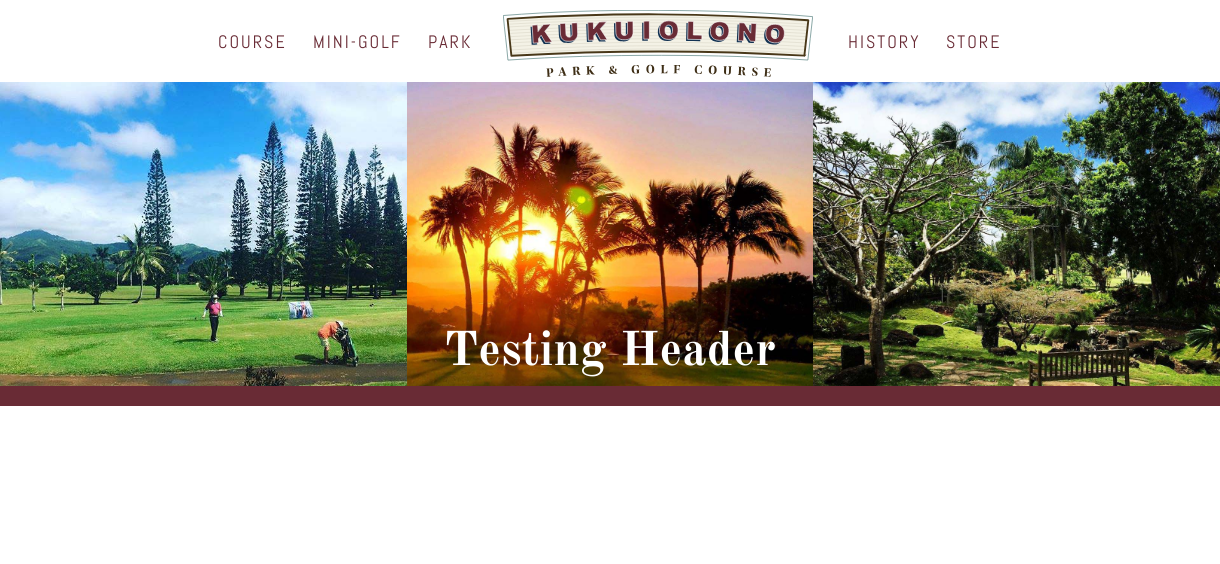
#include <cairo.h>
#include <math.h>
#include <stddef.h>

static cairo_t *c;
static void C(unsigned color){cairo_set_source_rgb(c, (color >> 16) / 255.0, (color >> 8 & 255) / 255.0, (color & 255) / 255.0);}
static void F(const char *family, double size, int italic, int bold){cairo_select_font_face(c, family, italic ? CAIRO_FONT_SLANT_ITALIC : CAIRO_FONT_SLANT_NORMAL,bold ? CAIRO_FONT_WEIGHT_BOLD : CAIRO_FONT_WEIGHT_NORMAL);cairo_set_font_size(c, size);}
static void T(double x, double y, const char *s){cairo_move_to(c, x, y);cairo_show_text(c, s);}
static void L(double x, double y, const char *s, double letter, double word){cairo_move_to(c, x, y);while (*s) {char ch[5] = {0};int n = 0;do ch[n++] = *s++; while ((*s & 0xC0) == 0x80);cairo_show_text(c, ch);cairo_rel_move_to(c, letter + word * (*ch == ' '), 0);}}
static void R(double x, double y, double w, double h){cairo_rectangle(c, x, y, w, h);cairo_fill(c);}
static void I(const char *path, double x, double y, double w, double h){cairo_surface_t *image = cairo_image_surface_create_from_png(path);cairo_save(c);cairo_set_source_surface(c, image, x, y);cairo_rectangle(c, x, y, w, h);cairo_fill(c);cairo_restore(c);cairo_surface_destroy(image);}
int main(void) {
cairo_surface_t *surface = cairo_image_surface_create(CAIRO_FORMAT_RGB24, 1220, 564);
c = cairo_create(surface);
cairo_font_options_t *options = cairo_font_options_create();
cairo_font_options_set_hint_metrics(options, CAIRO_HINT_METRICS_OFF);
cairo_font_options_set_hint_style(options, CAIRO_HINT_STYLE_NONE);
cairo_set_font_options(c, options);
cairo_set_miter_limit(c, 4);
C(0xffffff);
cairo_paint(c);
F("Abel",18,0,0);
C(0x692b35);
L(218,48,"COURSE",2,0);
L(313,48,"MINI-GOLF",2,0);
L(428,48,"PARK",2,0);
I("1.png",503,10,310,67);
L(848,48,"HISTORY",2,0);
L(946,48,"STORE",2,0);
R(0,386,1220,20);
I("2.png",0,82,407,304);
I("3.png",407,82,406,304);
I("4.png",813,82,407,304);
F("Old Standard TT",48,0,1);
C(0xffffff);
T(444,365,"Testing Header");
cairo_surface_write_to_png(surface, "o.png");
cairo_font_options_destroy(options);
cairo_destroy(c);
cairo_surface_destroy(surface);
return 0;
}
